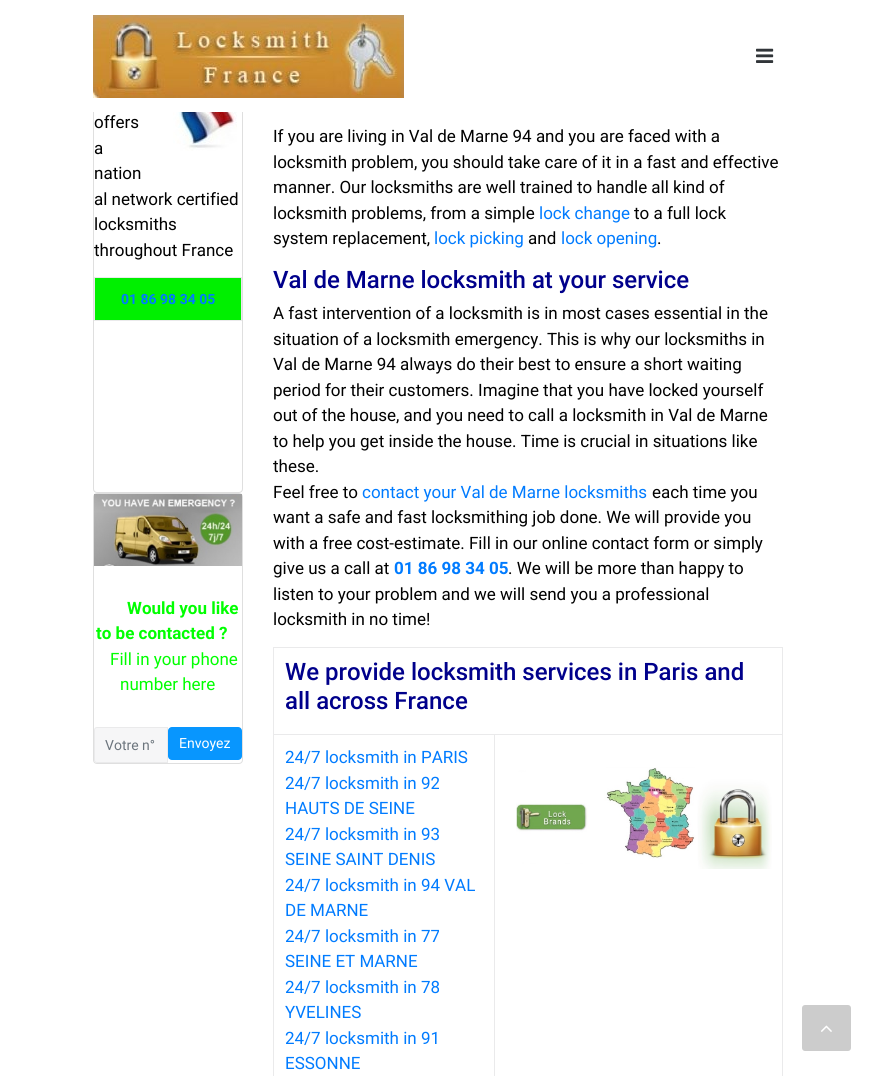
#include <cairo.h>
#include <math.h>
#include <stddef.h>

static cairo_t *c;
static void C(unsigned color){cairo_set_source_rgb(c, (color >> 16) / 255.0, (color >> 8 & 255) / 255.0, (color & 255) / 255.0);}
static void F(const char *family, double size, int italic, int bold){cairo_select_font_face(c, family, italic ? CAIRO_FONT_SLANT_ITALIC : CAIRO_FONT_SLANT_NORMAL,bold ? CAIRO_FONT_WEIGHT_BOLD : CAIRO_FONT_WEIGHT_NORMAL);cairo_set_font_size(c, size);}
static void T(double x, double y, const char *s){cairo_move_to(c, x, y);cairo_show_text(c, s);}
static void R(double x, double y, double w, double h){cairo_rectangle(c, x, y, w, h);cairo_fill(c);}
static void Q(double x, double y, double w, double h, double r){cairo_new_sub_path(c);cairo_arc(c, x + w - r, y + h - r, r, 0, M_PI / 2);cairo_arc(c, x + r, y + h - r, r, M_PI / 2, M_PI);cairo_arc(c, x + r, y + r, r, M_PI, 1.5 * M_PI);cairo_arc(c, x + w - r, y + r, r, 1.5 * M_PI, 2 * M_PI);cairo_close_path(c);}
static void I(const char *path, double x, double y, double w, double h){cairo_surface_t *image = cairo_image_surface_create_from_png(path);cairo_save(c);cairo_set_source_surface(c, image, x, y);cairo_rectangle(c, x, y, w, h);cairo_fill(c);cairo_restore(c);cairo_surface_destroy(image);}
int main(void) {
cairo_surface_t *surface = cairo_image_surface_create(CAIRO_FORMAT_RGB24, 876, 1076);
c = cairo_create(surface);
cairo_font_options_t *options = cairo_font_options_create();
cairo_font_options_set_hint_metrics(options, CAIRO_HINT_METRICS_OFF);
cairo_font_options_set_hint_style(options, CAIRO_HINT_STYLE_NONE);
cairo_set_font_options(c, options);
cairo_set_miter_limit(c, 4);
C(0xffffff);
cairo_paint(c);
Q(93.5,19.5,149,473,3.5);
C(0xdfdfdf);
cairo_set_line_width(c,1);
cairo_stroke(c);
C(0xffffff);
R(93,19,150,93);
I("1.png",93,15,311,83);
I("2.png",756,48,18,15);
I("3.png",173,112,64,39);
F("Roboto",17,0,0);
C(0x000000);
T(94,128,"offers");
T(94,154,"a");
T(94,179,"nation");
T(94,205,"al network certified");
T(94,230,"locksmiths");
T(94,256,"throughout France");
C(0xeaeaeb);
R(94,277,148,1);
R(241,277,1,44);
R(94,320,148,1);
R(94,277,1,44);
C(0x00f000);
R(95,278,146,42);
F("Roboto",14,0,1);
C(0x007bff);
T(121,304,"01 86 98 34 05");
Q(93.5,493.5,149,270,3.5);
C(0xdfdfdf);
cairo_stroke(c);
I("4.png",94,494,148,72);
F("Roboto",17,0,1);
C(0x00ff00);
T(127,614,"Would you like");
T(96,639,"to be contacted ?");
F("Roboto",17,0,0);
T(110,665,"Fill in your phone");
T(120,690,"number here");
C(0xf6f6f7);
cairo_new_path(c);
cairo_move_to(c,97,727.5);
cairo_line_to(c,167.5,727.5);
cairo_line_to(c,167.5,762.5);
cairo_line_to(c,97,762.5);
cairo_curve_to(c,95.5,762.5,94.5,761.5,94.5,760);
cairo_line_to(c,94.5,730);
cairo_curve_to(c,94.5,728.5,95.5,727.5,97,727.5);
cairo_close_path(c);
cairo_fill_preserve(c);
C(0xeaeaeb);
cairo_stroke(c);
F("Roboto",14,0,0);
C(0x6c757d);
T(105,750,"Votre n°");
C(0x0896fe);
Q(168,727,74,33,4);
cairo_fill(c);
C(0xffffff);
T(179,748,"Envoyez");
F("Roboto",17,0,0);
C(0x000000);
T(273,142,"If you are living in Val de Marne 94 and you are faced with a");
T(273,168,"locksmith problem, you should take care of it in a fast and effective");
T(273,193,"manner. Our locksmiths are well trained to handle all kind of");
T(273,219,"locksmith problems, from a simple");
C(0x007bff);
T(539,219,"lock change");
C(0x000000);
T(634,219,"to a full lock");
T(273,244,"system replacement,");
C(0x007bff);
T(434,244,"lock picking");
C(0x000000);
T(528,244,"and");
C(0x007bff);
T(561,244,"lock opening");
C(0x000000);
T(657,244,".");
F("Roboto Medium",24,0,0);
C(0x00008b);
T(273,288,"Val de Marne locksmith at your service");
F("Roboto",17,0,0);
C(0x000000);
T(273,319,"A fast intervention of a locksmith is in most cases essential in the");
T(273,345,"situation of a locksmith emergency. This is why our locksmiths in");
T(273,370,"Val de Marne 94 always do their best to ensure a short waiting");
T(273,396,"period for their customers. Imagine that you have locked yourself");
T(273,421,"out of the house, and you need to call a locksmith in Val de Marne");
T(273,447,"to help you get inside the house. Time is crucial in situations like");
T(273,472,"these.");
T(273,498,"Feel free to");
C(0x007bff);
T(362,498,"contact your Val de Marne locksmiths");
C(0x000000);
T(652,498,"each time you");
T(273,523,"want a safe and fast locksmithing job done. We will provide you");
T(273,549,"with a free cost-estimate. Fill in our online contact form or simply");
T(273,574,"give us a call at");
F("Roboto",17,0,1);
C(0x007bff);
T(394,574,"01 86 98 34 05");
F("Roboto",17,0,0);
C(0x000000);
T(508,574,". We will be more than happy to");
T(273,600,"listen to your problem and we will send you a professional");
T(273,625,"locksmith in no time!");
C(0xeaeaeb);
R(273,647,510,1);
R(782,647,1,429);
R(273,647,1,429);
F("Roboto Medium",24,0,0);
C(0x00008b);
T(285,680,"We provide locksmith services in Paris and");
T(285,709,"all across France");
C(0xeaeaeb);
R(494,734,289,1);
R(494,734,1,342);
R(273,734,222,1);
F("Roboto",17,0,0);
C(0x007bff);
T(285,763,"24/7 locksmith in PARIS");
T(285,789,"24/7 locksmith in 92");
T(285,814,"HAUTS DE SEINE");
T(285,840,"24/7 locksmith in 93");
T(285,865,"SEINE SAINT DENIS");
T(285,891,"24/7 locksmith in 94 VAL");
T(285,916,"DE MARNE");
T(285,942,"24/7 locksmith in 77");
T(285,967,"SEINE ET MARNE");
T(285,993,"24/7 locksmith in 78");
T(285,1018,"YVELINES");
T(285,1044,"24/7 locksmith in 91");
T(285,1069,"ESSONNE");
I("5.png",516,767,256,102);
C(0xcccccc);
Q(802,1005,49,46,3);
cairo_fill(c);
I("6.png",821,1025,11,7);
cairo_surface_write_to_png(surface, "o.png");
cairo_font_options_destroy(options);
cairo_destroy(c);
cairo_surface_destroy(surface);
return 0;
}
